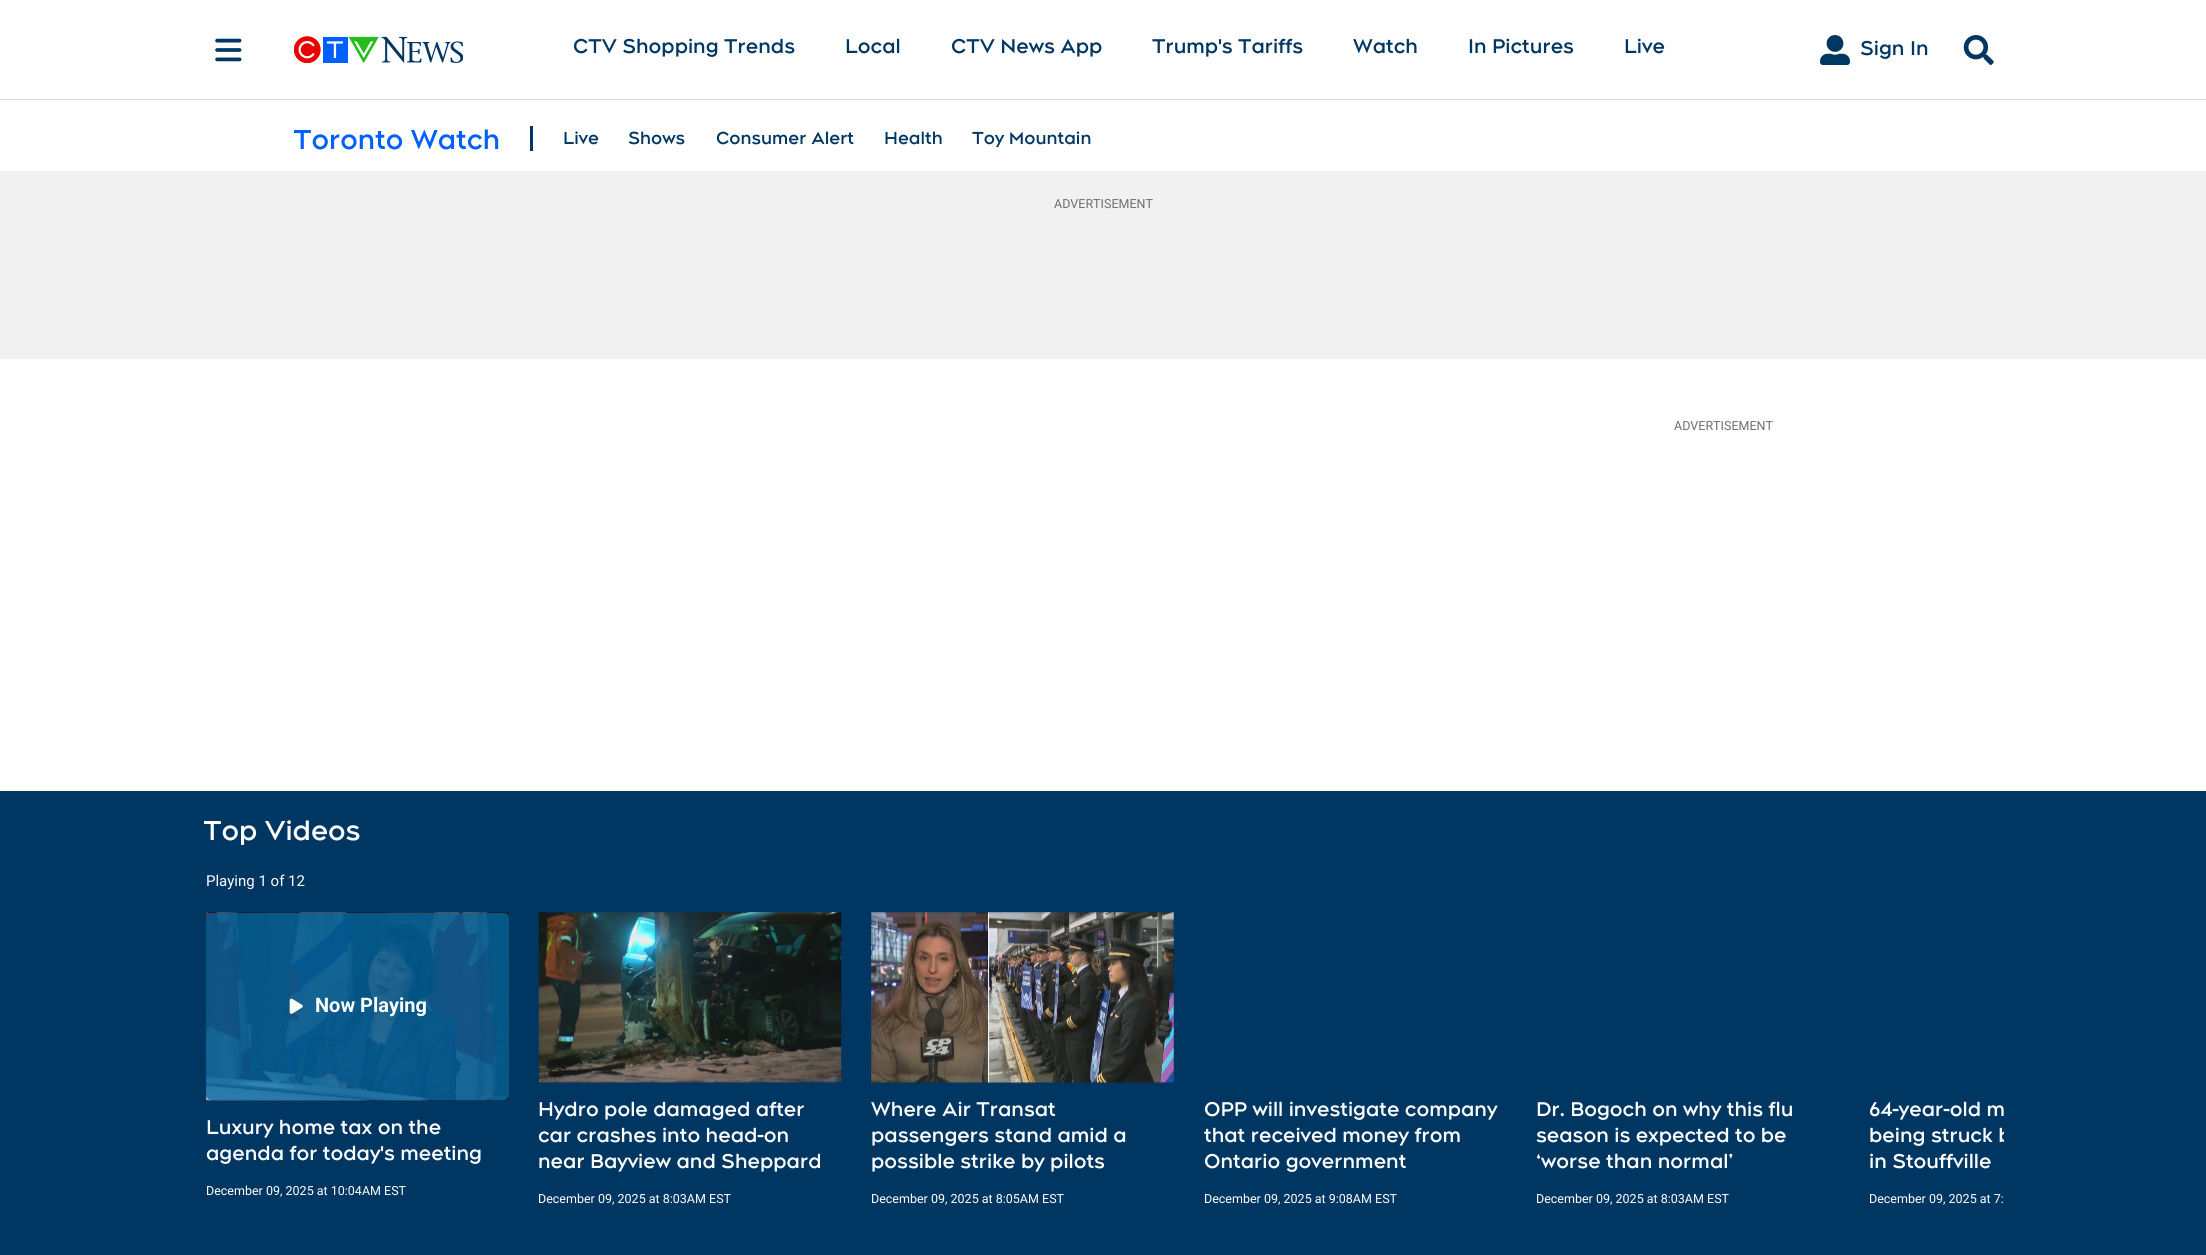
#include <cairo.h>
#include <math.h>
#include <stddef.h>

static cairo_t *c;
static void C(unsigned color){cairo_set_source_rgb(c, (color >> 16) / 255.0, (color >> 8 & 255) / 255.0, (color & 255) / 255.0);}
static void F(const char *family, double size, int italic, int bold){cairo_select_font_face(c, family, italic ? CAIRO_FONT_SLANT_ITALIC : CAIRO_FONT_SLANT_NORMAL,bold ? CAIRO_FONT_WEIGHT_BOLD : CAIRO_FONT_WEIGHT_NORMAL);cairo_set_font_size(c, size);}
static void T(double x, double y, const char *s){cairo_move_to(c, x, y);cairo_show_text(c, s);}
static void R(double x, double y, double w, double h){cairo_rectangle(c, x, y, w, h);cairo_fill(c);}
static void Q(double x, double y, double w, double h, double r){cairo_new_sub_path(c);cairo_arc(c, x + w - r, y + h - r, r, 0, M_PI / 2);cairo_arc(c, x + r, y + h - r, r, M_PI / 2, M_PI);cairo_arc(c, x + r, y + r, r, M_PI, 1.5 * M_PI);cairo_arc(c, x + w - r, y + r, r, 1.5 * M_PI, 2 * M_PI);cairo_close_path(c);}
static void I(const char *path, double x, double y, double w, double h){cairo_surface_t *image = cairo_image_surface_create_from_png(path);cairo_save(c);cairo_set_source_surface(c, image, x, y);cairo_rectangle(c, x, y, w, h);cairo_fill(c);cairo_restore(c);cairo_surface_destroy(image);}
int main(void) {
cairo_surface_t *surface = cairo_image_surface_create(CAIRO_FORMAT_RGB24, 2206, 1255);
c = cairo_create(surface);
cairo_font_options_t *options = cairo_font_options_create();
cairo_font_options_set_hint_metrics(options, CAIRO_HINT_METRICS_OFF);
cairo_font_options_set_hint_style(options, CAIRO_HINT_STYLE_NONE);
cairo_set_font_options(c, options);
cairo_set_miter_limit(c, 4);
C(0xffffff);
cairo_paint(c);
C(0xdddddd);
R(0,99,2206,1);
I("1.png",215,38,27,24);
I("2.png",294,36,169,27);
F("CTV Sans",20,0,1);
C(0x003662);
T(573,53,"CTV Shopping Trends");
T(845,53,"Local");
T(951,53,"CTV News App");
T(1152,53,"Trump's Tariffs");
T(1353,53,"Watch");
T(1468,53,"In Pictures");
T(1624,53,"Live");
I("3.png",1820,35,30,30);
T(1860,55,"Sign In");
I("4.png",1963,35,31,30);
cairo_save(c);
cairo_rectangle(c,294,120,206,39);
cairo_clip(c);
F("CTV Sans",27.5,0,1);
C(0x005fff);
T(293,149,"Toronto Watch");
cairo_restore(c);
R(530,126,3,25);
F("CTV Sans",17.5,0,1);
T(563,144,"Live");
T(628,144,"Shows");
T(716,144,"Consumer Alert");
T(884,144,"Health");
T(972,144,"Toy Mountain");
C(0xf1f1f1);
R(0,171,2206,188);
F("Roboto",12.5,0,0);
C(0x6e6e6e);
T(1054,208,"ADVERTISEMENT");
T(1674,430,"ADVERTISEMENT");
C(0x003662);
R(0,791,2206,464);
cairo_save(c);
cairo_rectangle(c,204,811,1800,39);
cairo_clip(c);
F("CTV Sans",27.5,0,1);
C(0xffffff);
T(203,840,"Top Videos");
cairo_restore(c);
F("Roboto",15,0,0);
C(0xffffff);
T(206,886,"Playing 1 of 12");
I("5.png",206,912,303,189);
cairo_set_source_rgba(c,0,0.4,0.639,0.8);
Q(206,913,303,187,5);
cairo_fill(c);
I("6.png",289,998,14,16);
F("Roboto",20,0,1);
C(0xffffff);
T(315,1012,"Now Playing");
F("CTV Sans",20,0,1);
T(206,1134,"Luxury home tax on the");
T(206,1160,"agenda for today's meeting");
F("Roboto",12.5,0,0);
T(206,1195,"December 09, 2025 at 10:04AM EST");
I("7.png",538,912,304,172);
F("CTV Sans",20,0,1);
T(538,1116,"Hydro pole damaged after");
T(538,1142,"car crashes into head-on");
T(538,1168,"near Bayview and Sheppard");
F("Roboto",12.5,0,0);
T(538,1203,"December 09, 2025 at 8:03AM EST");
I("8.png",871,912,303,172);
F("CTV Sans",20,0,1);
T(871,1116,"Where Air Transat");
T(871,1142,"passengers stand amid a");
T(871,1168,"possible strike by pilots");
F("Roboto",12.5,0,0);
T(871,1203,"December 09, 2025 at 8:05AM EST");
F("CTV Sans",20,0,1);
T(1204,1116,"OPP will investigate company");
T(1204,1142,"that received money from");
T(1204,1168,"Ontario government");
F("Roboto",12.5,0,0);
T(1204,1203,"December 09, 2025 at 9:08AM EST");
F("CTV Sans",20,0,1);
T(1536,1116,"Dr. Bogoch on why this flu");
T(1536,1142,"season is expected to be");
T(1536,1168,"‘worse than normal’");
F("Roboto",12.5,0,0);
T(1536,1203,"December 09, 2025 at 8:03AM EST");
F("CTV Sans",20,0,1);
T(1869,1116,"64-year-old m");
cairo_save(c);
cairo_rectangle(c,1869,1098,135,77);
cairo_clip(c);
T(1869,1142,"being struck b");
cairo_restore(c);
T(1869,1168,"in Stouffville");
F("Roboto",12.5,0,0);
T(1869,1203,"December 09, 2025 at 7:");
cairo_surface_write_to_png(surface, "o.png");
cairo_font_options_destroy(options);
cairo_destroy(c);
cairo_surface_destroy(surface);
return 0;
}
